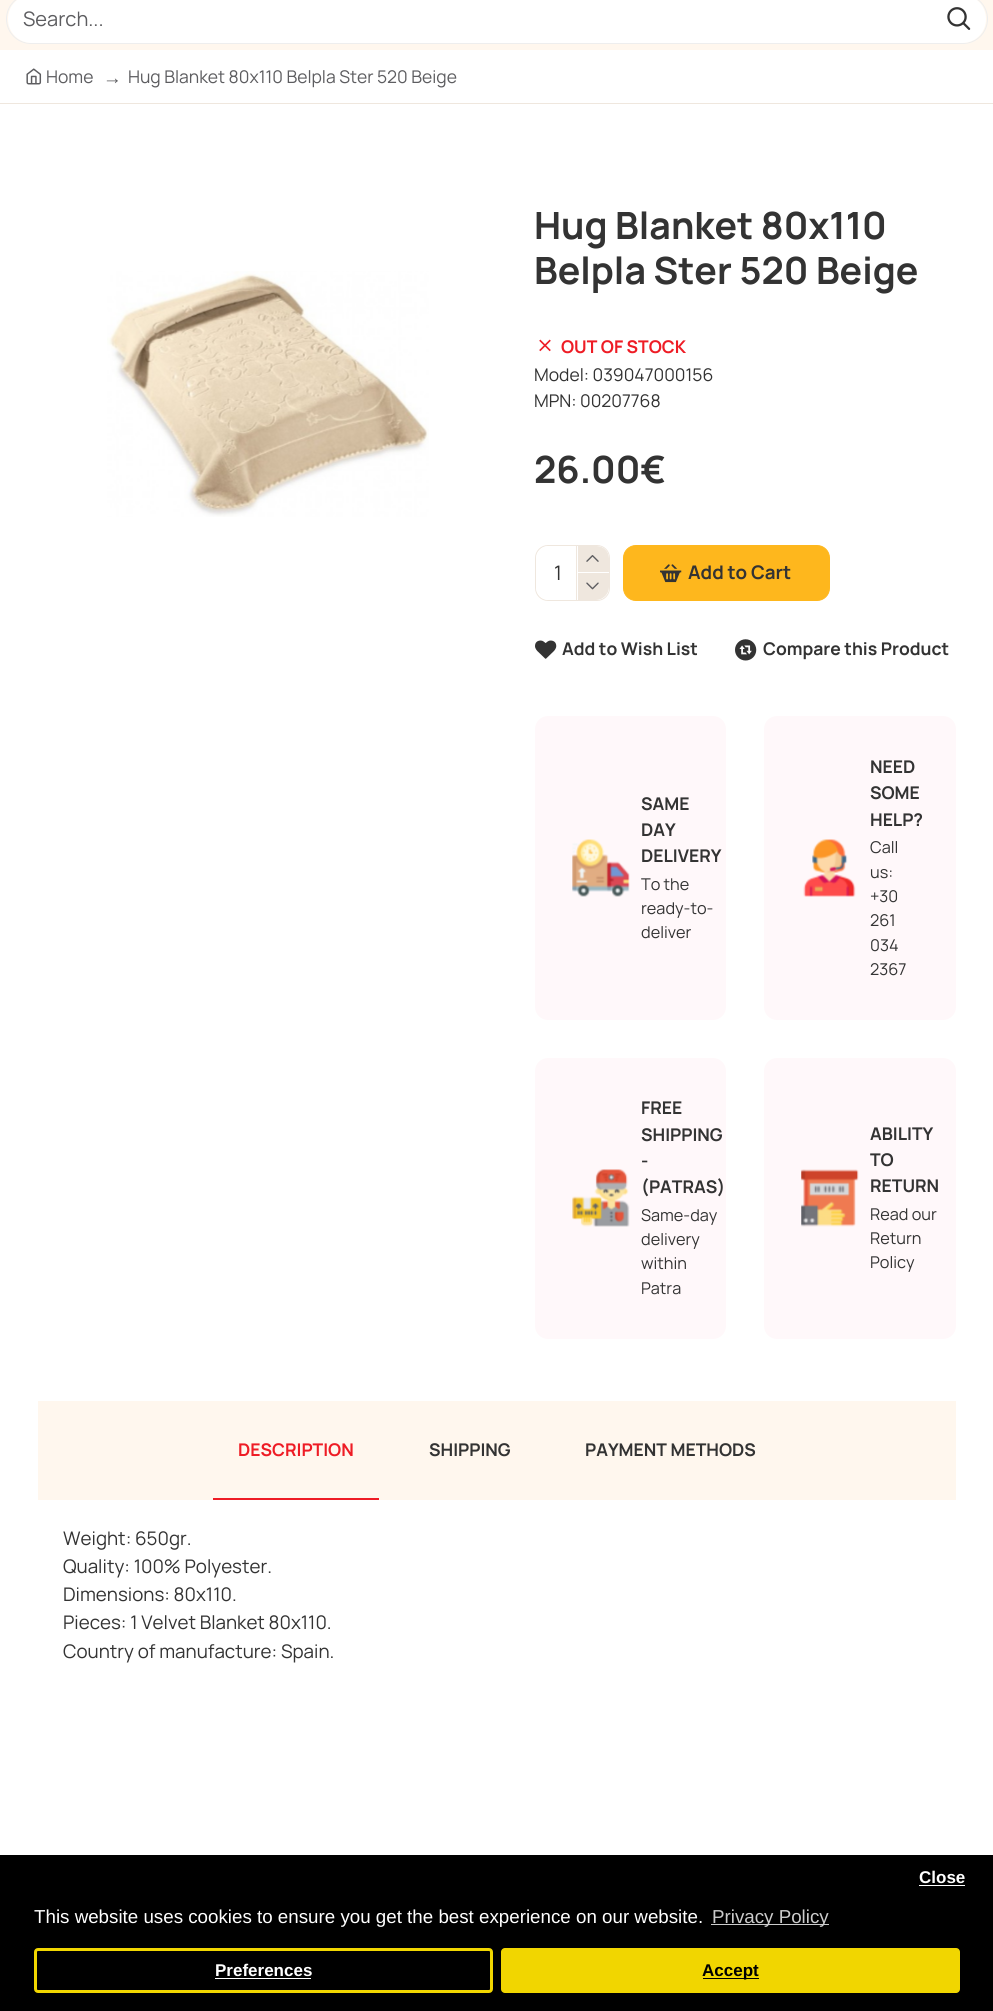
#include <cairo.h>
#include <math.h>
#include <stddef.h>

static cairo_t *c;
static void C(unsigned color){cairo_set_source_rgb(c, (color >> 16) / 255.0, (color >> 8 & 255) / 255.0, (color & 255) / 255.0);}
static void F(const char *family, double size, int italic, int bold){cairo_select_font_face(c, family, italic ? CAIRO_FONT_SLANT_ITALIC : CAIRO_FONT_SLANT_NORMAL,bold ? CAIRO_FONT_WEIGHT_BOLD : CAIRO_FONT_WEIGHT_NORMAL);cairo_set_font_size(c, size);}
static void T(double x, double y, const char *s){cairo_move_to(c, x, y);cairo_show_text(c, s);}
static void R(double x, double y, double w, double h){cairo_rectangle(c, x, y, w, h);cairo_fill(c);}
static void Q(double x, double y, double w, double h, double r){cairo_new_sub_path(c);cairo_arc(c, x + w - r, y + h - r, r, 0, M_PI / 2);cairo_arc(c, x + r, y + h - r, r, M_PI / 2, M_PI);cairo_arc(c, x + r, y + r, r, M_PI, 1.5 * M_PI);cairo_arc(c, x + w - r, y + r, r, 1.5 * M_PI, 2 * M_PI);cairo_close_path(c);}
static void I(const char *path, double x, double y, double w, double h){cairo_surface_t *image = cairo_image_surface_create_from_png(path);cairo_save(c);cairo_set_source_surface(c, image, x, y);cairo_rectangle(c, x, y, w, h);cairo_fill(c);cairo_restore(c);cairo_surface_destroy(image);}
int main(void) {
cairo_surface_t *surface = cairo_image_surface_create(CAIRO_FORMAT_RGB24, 993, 2011);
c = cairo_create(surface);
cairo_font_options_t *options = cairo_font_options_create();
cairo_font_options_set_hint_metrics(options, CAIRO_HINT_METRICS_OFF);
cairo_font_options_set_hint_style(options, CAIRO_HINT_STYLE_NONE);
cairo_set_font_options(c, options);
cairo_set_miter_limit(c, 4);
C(0xffffff);
cairo_paint(c);
C(0xfff7ee);
R(0,0,993,50);
Q(6.5,-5.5,981,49,24.5);
C(0xeeeeee);
cairo_set_line_width(c,1);
cairo_stroke(c);
C(0xffffff);
cairo_new_path(c);
cairo_move_to(c,32,-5);
cairo_line_to(c,930,-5);
cairo_line_to(c,930,43);
cairo_line_to(c,32,43);
cairo_curve_to(c,18.5,43,8,32.5,8,19);
cairo_curve_to(c,8,5.5,18.5,-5,32,-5);
cairo_close_path(c);
cairo_fill(c);
F("Manrope",20,0,0);
C(0x5d5d60);
T(23,26,"Search...");
C(0xffffff);
cairo_new_path(c);
cairo_move_to(c,930,-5);
cairo_line_to(c,962,-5);
cairo_curve_to(c,975.5,-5,986,5.5,986,19);
cairo_curve_to(c,986,32.5,975.5,43,962,43);
cairo_line_to(c,930,43);
cairo_close_path(c);
cairo_fill(c);
I("1.png",947,7,24,23);
I("2.png",26,68,16,17);
F("Manrope",17.5,0,0);
C(0x5d5d60);
T(46,83,"Home");
F("Liberation Serif",18.75,0,0);
T(103,84,"→");
F("Manrope",17.5,0,0);
T(128,83,"Hug Blanket 80x110 Belpla Ster 520 Beige");
C(0xefe7de);
R(0,103,993,1);
I("3.png",107,271,322,246);
F("Manrope",37.5,0,1);
C(0x333333);
T(534,239,"Hug Blanket 80x110");
T(534,284,"Belpla Ster 520 Beige");
I("4.png",539,339,12,13);
F("Manrope",17.5,0,1);
C(0xee1c25);
T(561,353,"OUT OF STOCK");
F("Manrope",17.5,0,0);
C(0x333333);
T(534,381,"Model: 039047000156");
T(534,407,"MPN: 00207768");
F("Manrope",37.5,0,1);
T(534,483,"26.00€");
Q(535.5,545.5,74,55,12.5);
C(0xefe7de);
cairo_stroke(c);
C(0xffffff);
Q(536,546,73,54,13);
cairo_fill(c);
F("Manrope",20,0,0);
C(0x333333);
T(554,580,"1");
C(0xefe7de);
R(576,546,1,54);
cairo_new_path(c);
cairo_move_to(c,578,546);
cairo_line_to(c,596.5,546);
cairo_curve_to(c,603.5,546,609,551.5,609,558.5);
cairo_line_to(c,609,571);
cairo_line_to(c,578,571);
cairo_close_path(c);
cairo_fill(c);
R(578,571,31,1);
I("5.png",586,555,13,7);
cairo_new_path(c);
cairo_move_to(c,578,573);
cairo_line_to(c,609,573);
cairo_line_to(c,609,587);
cairo_curve_to(c,609,594,603,600,596,600);
cairo_line_to(c,578,600);
cairo_close_path(c);
cairo_fill(c);
I("6.png",586,582,13,8);
C(0xfeb71d);
Q(623.5,545.5,206,55,12.5);
cairo_fill_preserve(c);
cairo_stroke(c);
I("7.png",660,564,22,19);
F("Manrope",18.75,0,1);
C(0x333333);
T(688,579,"Add to Cart");
I("8.png",535,640,22,19);
F("Manrope",17.5,0,1);
T(562,655,"Add to Wish List");
I("9.png",735,639,22,22);
T(763,655,"Compare this Product");
C(0xfff8fa);
Q(535,716,191,304,13);
cairo_fill(c);
I("10.png",572,839,58,58);
C(0x333333);
T(641,810,"SAME");
T(641,836,"DAY");
T(641,862,"DELIVERY");
F("Manrope",16.25,0,0);
T(641,890,"To the");
T(641,914,"ready-to-");
T(641,938,"deliver");
C(0xfff8fa);
Q(764,716,192,304,13);
cairo_fill(c);
I("11.png",803,839,53,58);
F("Manrope",17.5,0,1);
C(0x333333);
T(870,773,"NEED");
T(870,799,"SOME");
T(870,826,"HELP?");
F("Manrope",16.25,0,0);
T(870,853,"Call");
T(870,878,"us:");
T(870,902,"+30");
T(870,926,"261");
T(870,951,"034");
T(870,975,"2367");
C(0xfff8fa);
Q(535,1058,191,281,13);
cairo_fill(c);
I("12.png",572,1169,58,58);
F("Manrope",17.5,0,1);
C(0x333333);
T(641,1114,"FREE");
T(641,1141,"SHIPPING");
T(641,1167,"-");
T(641,1193,"(PATRAS)");
F("Manrope",16.25,0,0);
T(641,1221,"Same-day");
T(641,1245,"delivery");
T(641,1269,"within");
T(641,1294,"Patra");
C(0xfff8fa);
Q(764,1058,192,281,13);
cairo_fill(c);
I("13.png",801,1169,58,58);
F("Manrope",17.5,0,1);
C(0x333333);
T(870,1140,"ABILITY");
T(870,1166,"TO");
T(870,1192,"RETURN");
F("Manrope",16.25,0,0);
T(870,1220,"Read our");
T(870,1244,"Return");
T(870,1268,"Policy");
C(0xfff7ee);
R(38,1401,918,99);
C(0xee1c25);
R(213,1498,166,2);
F("Manrope",17.5,0,1);
T(238,1456,"DESCRIPTION");
C(0x333333);
T(429,1456,"SHIPPING");
T(585,1456,"PAYMENT METHODS");
F("Manrope",18.75,0,0);
T(63,1545,"Weight: 650gr.");
T(63,1573,"Quality: 100% Polyester.");
T(63,1601,"Dimensions: 80x110.");
T(63,1629,"Pieces: 1 Velvet Blanket 80x110.");
T(63,1658,"Country of manufacture: Spain.");
C(0x000000);
R(0,1855,993,156);
F("Liberation Sans",17,0,1);
C(0xffffff);
T(919,1883,"Close");
R(919,1885,46,1);
Q(35.5,1949.5,456,42,2.5);
C(0xf1d600);
cairo_set_line_width(c,3);
cairo_stroke(c);
C(0xffffff);
T(215,1976,"Preferences");
R(215,1978,96,1);
C(0xf1d600);
Q(501,1948,459,45,4);
cairo_fill(c);
C(0x000000);
R(703,1978,56,1);
T(702,1976,"Accept");
F("Liberation Sans",18.75,0,0);
C(0xffffff);
T(34,1923,"This website uses cookies to ensure you get the best experience on our website.");
C(0xcccccc);
R(711,1924,118,1);
T(712,1923,"Privacy Policy");
cairo_surface_write_to_png(surface, "o.png");
cairo_font_options_destroy(options);
cairo_destroy(c);
cairo_surface_destroy(surface);
return 0;
}
